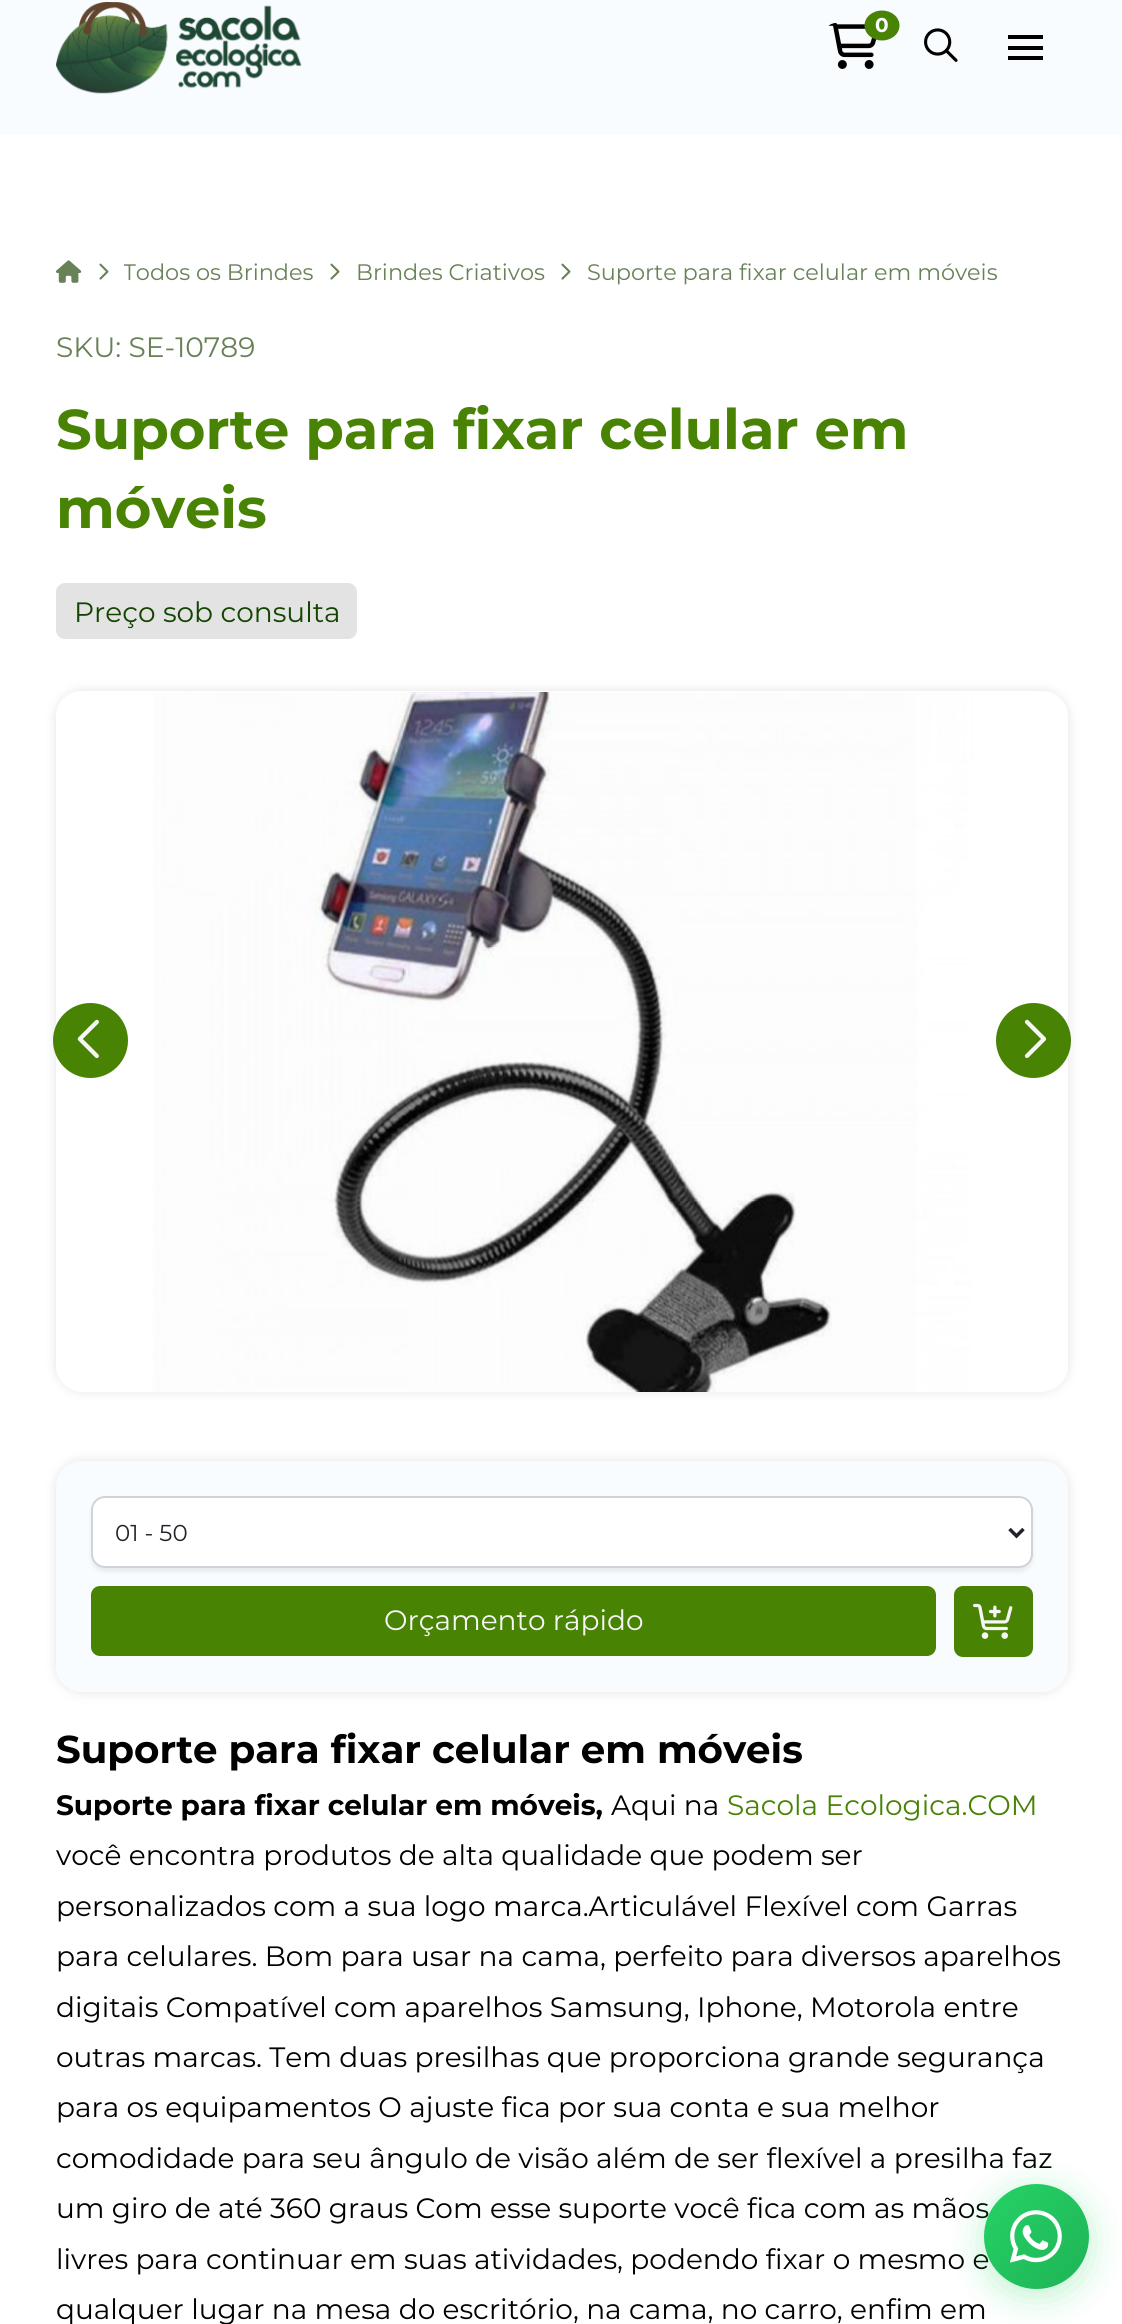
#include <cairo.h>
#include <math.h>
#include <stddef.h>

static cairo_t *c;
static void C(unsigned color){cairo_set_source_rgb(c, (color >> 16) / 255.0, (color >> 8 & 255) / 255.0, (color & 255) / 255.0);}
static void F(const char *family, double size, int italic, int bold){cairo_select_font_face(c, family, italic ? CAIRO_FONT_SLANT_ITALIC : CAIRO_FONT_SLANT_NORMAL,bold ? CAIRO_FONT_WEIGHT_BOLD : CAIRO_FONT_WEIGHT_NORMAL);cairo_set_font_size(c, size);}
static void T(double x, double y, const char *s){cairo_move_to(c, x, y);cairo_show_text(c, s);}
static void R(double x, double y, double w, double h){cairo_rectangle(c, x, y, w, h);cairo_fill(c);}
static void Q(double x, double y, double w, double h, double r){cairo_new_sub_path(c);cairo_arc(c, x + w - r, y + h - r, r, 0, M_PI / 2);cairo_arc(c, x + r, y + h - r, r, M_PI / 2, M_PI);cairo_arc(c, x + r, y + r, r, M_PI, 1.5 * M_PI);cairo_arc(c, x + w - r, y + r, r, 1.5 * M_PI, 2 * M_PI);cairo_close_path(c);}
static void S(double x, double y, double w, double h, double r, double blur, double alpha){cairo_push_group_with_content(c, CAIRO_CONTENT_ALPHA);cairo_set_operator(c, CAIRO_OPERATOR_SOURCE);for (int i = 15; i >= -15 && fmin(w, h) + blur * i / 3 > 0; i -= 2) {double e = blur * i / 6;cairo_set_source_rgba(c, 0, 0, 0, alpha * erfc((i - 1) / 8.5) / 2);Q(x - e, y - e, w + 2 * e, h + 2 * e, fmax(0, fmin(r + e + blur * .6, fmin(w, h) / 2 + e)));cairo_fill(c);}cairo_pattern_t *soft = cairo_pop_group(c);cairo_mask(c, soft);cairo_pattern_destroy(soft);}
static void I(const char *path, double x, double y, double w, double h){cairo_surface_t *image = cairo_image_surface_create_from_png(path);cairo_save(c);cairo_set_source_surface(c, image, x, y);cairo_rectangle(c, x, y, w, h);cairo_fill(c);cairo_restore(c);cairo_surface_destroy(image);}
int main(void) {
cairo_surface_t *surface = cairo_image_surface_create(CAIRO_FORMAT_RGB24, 1122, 2324);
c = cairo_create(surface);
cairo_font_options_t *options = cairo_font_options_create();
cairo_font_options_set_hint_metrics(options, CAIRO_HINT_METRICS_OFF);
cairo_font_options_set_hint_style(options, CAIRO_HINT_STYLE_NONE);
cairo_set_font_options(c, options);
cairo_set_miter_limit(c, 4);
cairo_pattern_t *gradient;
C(0xffffff);
cairo_paint(c);
C(0xf9fcff);
R(0,0,1122,135);
I("1.png",56,2,246,92);
I("2.png",828,23,49,46);
C(0x498304);
cairo_new_path(c);
cairo_move_to(c,882,10.5);
cairo_curve_to(c,891.5,10.5,899.5,17,899.5,25.5);
cairo_curve_to(c,899.5,34,891.5,40.5,882,40.5);
cairo_curve_to(c,872.5,40.5,864.5,34,864.5,25.5);
cairo_curve_to(c,864.5,17,872.5,10.5,882,10.5);
cairo_close_path(c);
cairo_fill(c);
F("Montserrat",20,0,1);
C(0xf9fcff);
T(875,32,"0");
I("3.png",924,28,34,34);
C(0x000000);
R(1008,35,35,4);
R(1008,46,35,4);
R(1008,56,35,4);
I("4.png",56,260,26,23);
I("5.png",99,263,10,17);
cairo_save(c);
cairo_rectangle(c,124,259,189,28);
cairo_clip(c);
F("Montserrat",22.4,0,0);
C(0x688258);
T(123,280,"Todos os Brindes");
cairo_restore(c);
I("5.png",330,263,10,17);
F("Montserrat",22.4,0,0);
C(0x688258);
T(356,280,"Brindes Criativos");
I("5.png",561,263,10,17);
T(587,280,"Suporte para fixar celular em móveis");
F("Montserrat",28,0,0);
T(56,357,"SKU: SE-10789");
F("Montserrat",56,0,1);
C(0x498304);
T(56,449,"Suporte para fixar celular em");
T(56,528,"móveis");
C(0xe4e3e3);
Q(56,583,301,56,9);
cairo_fill(c);
F("Montserrat",28,0,0);
C(0x134400);
T(74,622,"Preço sob consulta");
cairo_save(c);
cairo_set_fill_rule(c,CAIRO_FILL_RULE_EVEN_ODD);
cairo_new_path(c);
cairo_move_to(c,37,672);
cairo_line_to(c,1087,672);
cairo_line_to(c,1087,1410);
cairo_line_to(c,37,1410);
cairo_close_path(c);
cairo_move_to(c,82,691);
cairo_line_to(c,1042,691);
cairo_curve_to(c,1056.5,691,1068,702.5,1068,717);
cairo_line_to(c,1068,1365);
cairo_curve_to(c,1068,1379.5,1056.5,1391,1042,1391);
cairo_line_to(c,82,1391);
cairo_curve_to(c,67.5,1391,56,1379.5,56,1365);
cairo_line_to(c,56,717);
cairo_curve_to(c,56,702.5,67.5,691,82,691);
cairo_close_path(c);
cairo_clip(c);
C(0x000000);
S(56,691,1012,700,26,6,.11);
cairo_restore(c);
I("6.png",64,692,993,700);
C(0x498304);
cairo_arc(c,90.5,1040.5,37.5,0,2 * M_PI);
cairo_fill(c);
I("7.png",77,1019,22,40);
cairo_arc(c,1033.5,1040.5,37.5,0,2 * M_PI);
cairo_fill(c);
I("8.png",1024,1019,23,39);
C(0x000000);
S(56,1461,1012,231,26,6,.11);
C(0xf9fcff);
Q(56,1461,1012,231,26);
cairo_fill(c);
C(0x212529);
S(91,1500,942,72,14,2,.08);
C(0xffffff);
Q(92,1497,940,70,13);
cairo_fill_preserve(c);
C(0xced4da);
cairo_stroke(c);
cairo_new_path(c);
cairo_move_to(c,1009.5,1529);
cairo_line_to(c,1016.5,1536);
cairo_line_to(c,1023.5,1529);
C(0x212529);
cairo_set_line_width(c,3.5);
cairo_stroke(c);
F("Montserrat",23,0,0);
T(115,1541,"01 - 50");
C(0x498304);
Q(91,1586,845,70,9);
cairo_fill(c);
F("Montserrat",28,0,0);
C(0xf6f6f6);
T(384,1630,"Orçamento rápido");
C(0x498304);
Q(954,1586,79,71,9);
cairo_fill(c);
I("9.png",973,1603,40,36);
F("Montserrat",38.75,0,1);
C(0x000000);
T(56,1763,"Suporte para fixar celular em móveis");
F("Montserrat",28,0,1);
T(56,1815,"Suporte para fixar celular em móveis,");
F("Montserrat",28,0,0);
T(611,1815,"Aqui na");
C(0x498304);
T(727,1815,"Sacola Ecologica.COM");
C(0x000000);
T(56,1865,"você encontra produtos de alta qualidade que podem ser");
T(56,1916,"personalizados com a sua logo marca.Articulável Flexível com Garras");
T(56,1966,"para celulares. Bom para usar na cama, perfeito para diversos aparelhos");
T(56,2017,"digitais Compatível com aparelhos Samsung, Iphone, Motorola entre");
T(56,2067,"outras marcas. Tem duas presilhas que proporciona grande segurança");
T(56,2117,"para os equipamentos O ajuste fica por sua conta e sua melhor");
T(56,2168,"comodidade para seu ângulo de visão além de ser flexível a presilha faz");
T(56,2218,"um giro de até 360 graus Com esse suporte você fica com as mãos");
T(56,2269,"livres para continuar em suas atividades, podendo fixar o mesmo e");
T(56,2319,"qualquer lugar na mesa do escritório, na cama, no carro, enfim em");
C(0x25d366);
S(984,2191,105,105,52.5,17.5,.3);
gradient = cairo_pattern_create_linear(984,2184,1089,2289);
cairo_pattern_add_color_stop_rgba(gradient,0,0.145,0.827,0.4,1);
cairo_pattern_add_color_stop_rgba(gradient,1,0.122,0.702,0.337,1);
cairo_set_source(c,gradient);
cairo_pattern_destroy(gradient);
cairo_arc(c,1036.5,2236.5,52.5,0,2 * M_PI);
cairo_fill(c);
I("10.png",1010,2210,52,53);
cairo_surface_write_to_png(surface, "o.png");
cairo_font_options_destroy(options);
cairo_destroy(c);
cairo_surface_destroy(surface);
return 0;
}
